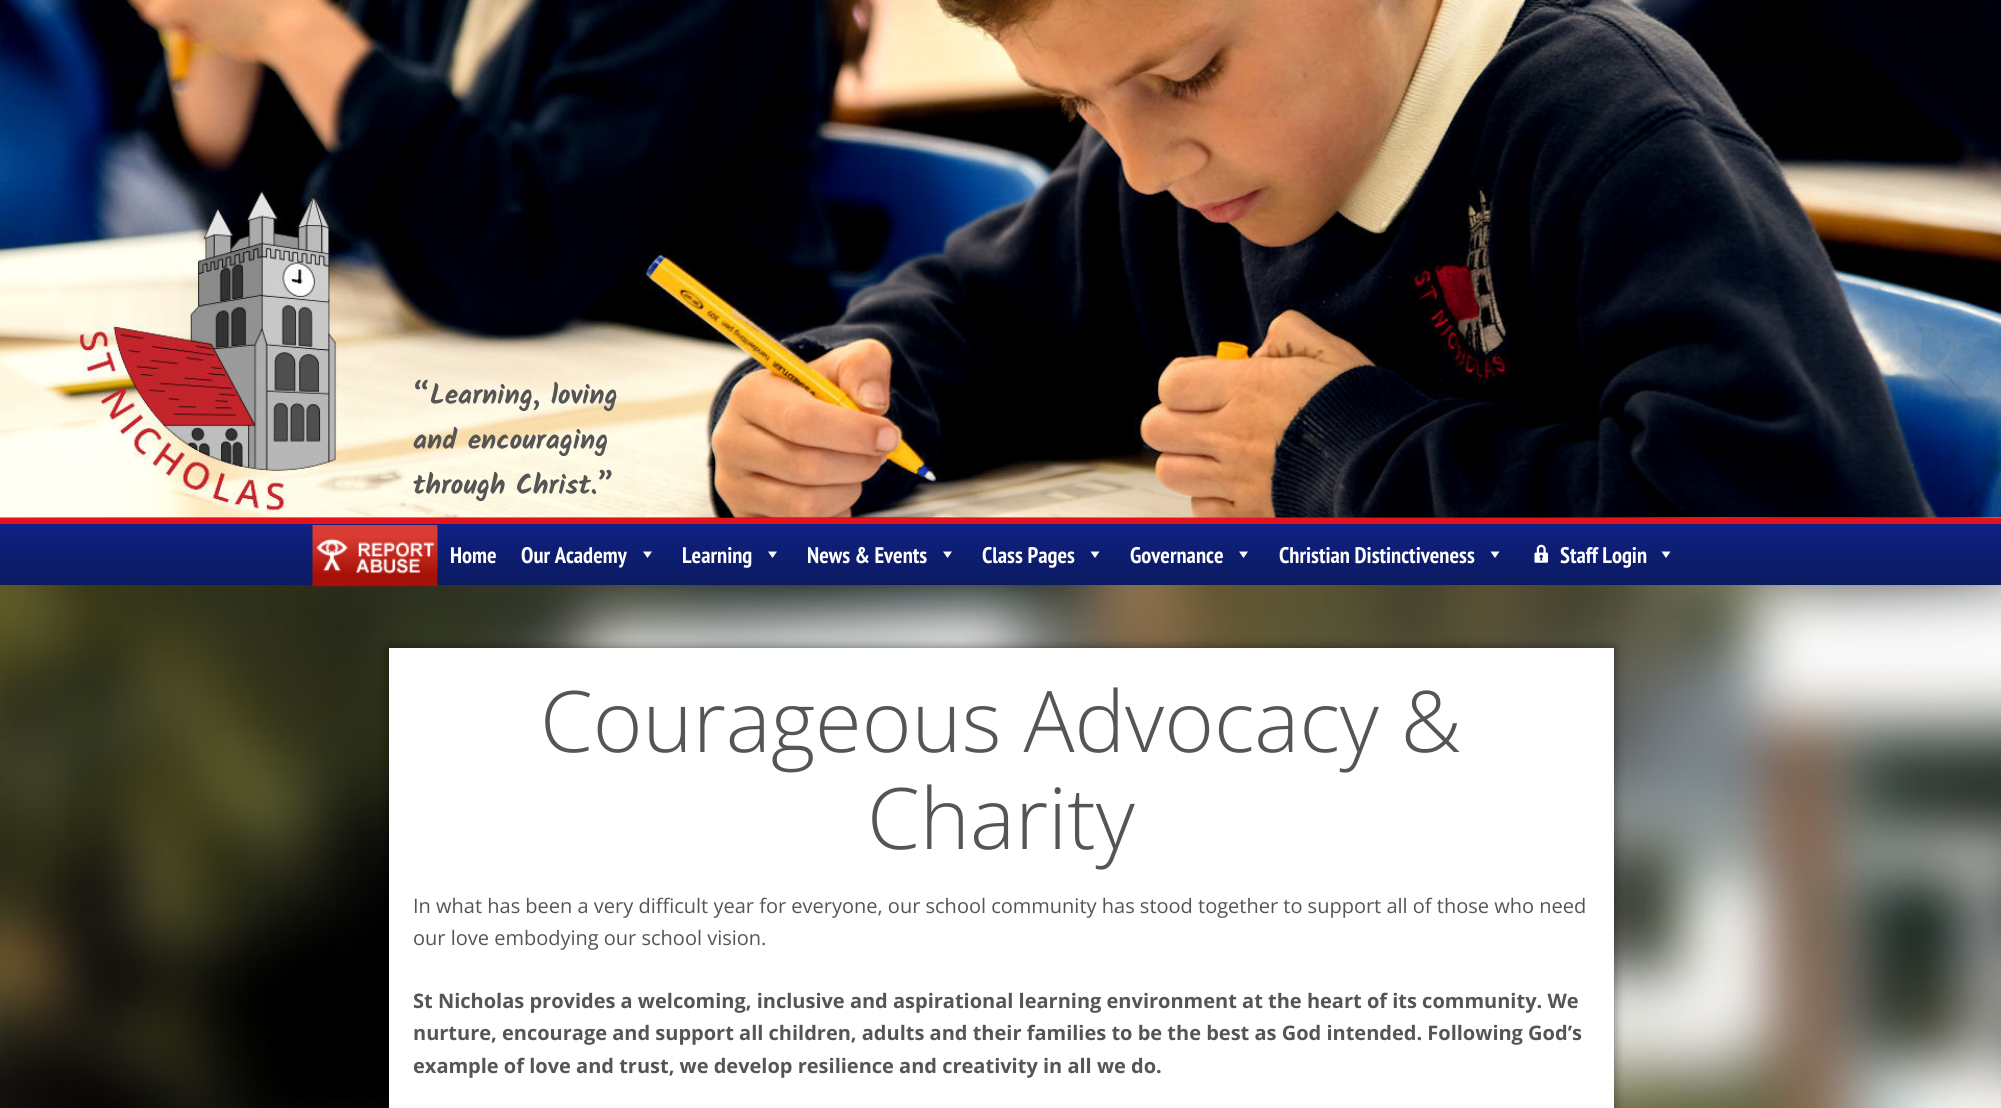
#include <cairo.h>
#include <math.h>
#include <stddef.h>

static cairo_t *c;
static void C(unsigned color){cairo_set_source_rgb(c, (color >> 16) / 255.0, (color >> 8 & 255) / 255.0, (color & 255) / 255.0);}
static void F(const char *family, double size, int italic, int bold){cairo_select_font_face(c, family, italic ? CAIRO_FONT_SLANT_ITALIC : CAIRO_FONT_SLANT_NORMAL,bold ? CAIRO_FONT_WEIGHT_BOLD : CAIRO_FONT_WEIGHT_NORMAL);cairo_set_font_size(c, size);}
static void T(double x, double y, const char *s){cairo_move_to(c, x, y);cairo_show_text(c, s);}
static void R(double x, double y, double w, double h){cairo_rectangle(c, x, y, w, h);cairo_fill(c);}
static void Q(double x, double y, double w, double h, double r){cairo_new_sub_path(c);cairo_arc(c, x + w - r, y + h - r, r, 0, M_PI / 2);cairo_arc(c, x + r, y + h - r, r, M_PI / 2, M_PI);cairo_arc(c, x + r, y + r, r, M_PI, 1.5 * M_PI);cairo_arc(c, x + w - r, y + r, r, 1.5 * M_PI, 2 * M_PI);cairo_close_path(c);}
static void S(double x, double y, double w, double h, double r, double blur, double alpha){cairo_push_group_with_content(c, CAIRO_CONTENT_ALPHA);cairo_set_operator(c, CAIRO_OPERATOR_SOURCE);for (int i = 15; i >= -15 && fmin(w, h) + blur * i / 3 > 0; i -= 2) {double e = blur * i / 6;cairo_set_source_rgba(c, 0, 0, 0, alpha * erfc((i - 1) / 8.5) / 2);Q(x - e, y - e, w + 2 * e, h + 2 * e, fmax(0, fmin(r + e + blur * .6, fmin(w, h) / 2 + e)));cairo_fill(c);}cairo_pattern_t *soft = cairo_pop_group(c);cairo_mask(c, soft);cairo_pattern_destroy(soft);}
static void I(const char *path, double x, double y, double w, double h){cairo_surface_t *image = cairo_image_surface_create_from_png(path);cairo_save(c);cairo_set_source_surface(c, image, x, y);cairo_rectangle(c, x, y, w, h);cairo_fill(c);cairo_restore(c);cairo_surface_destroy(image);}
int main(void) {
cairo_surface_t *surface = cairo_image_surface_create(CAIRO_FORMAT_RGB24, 2001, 1108);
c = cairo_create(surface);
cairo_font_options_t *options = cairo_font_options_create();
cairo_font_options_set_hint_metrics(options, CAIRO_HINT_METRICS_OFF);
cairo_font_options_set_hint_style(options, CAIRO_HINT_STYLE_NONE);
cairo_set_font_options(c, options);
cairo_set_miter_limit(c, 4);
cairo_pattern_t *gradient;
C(0xffffff);
cairo_paint(c);
I("1.png",0,517,2001,591);
C(0xe5131d);
R(0,518,2001,6);
I("2.png",0,0,2001,518);
F("Kalam",27.5,0,1);
C(0x555555);
T(413,404,"“Learning, loving");
T(413,449,"and encouraging");
T(413,494,"through Christ.”");
gradient = cairo_pattern_create_linear(1001,524,1001,585);
cairo_pattern_add_color_stop_rgba(gradient,0,0.059,0.129,0.514,1);
cairo_pattern_add_color_stop_rgba(gradient,1,0.043,0.102,0.376,1);
cairo_set_source(c,gradient);
cairo_pattern_destroy(gradient);
R(0,524,2001,61);
I("3.png",312,525,126,62);
F("PT Sans Narrow",22.5,0,1);
C(0xffffff);
T(450,563,"Home");
T(521,563,"Our Academy");
cairo_new_path(c);
cairo_move_to(c,652,551.5);
cairo_line_to(c,647.5,558);
cairo_line_to(c,643,551.5);
cairo_close_path(c);
cairo_fill(c);
T(682,563,"Learning");
cairo_new_path(c);
cairo_move_to(c,777,551.5);
cairo_line_to(c,772.5,558);
cairo_line_to(c,768,551.5);
cairo_close_path(c);
cairo_fill(c);
T(807,563,"News & Events");
cairo_new_path(c);
cairo_move_to(c,952,551.5);
cairo_line_to(c,947.5,558);
cairo_line_to(c,943,551.5);
cairo_close_path(c);
cairo_fill(c);
T(982,563,"Class Pages");
cairo_new_path(c);
cairo_move_to(c,1099.5,551.5);
cairo_line_to(c,1095,558);
cairo_line_to(c,1090.5,551.5);
cairo_close_path(c);
cairo_fill(c);
T(1130,563,"Governance");
cairo_new_path(c);
cairo_move_to(c,1248,551.5);
cairo_line_to(c,1243.5,558);
cairo_line_to(c,1239,551.5);
cairo_close_path(c);
cairo_fill(c);
T(1279,563,"Christian Distinctiveness");
cairo_new_path(c);
cairo_move_to(c,1499.5,551.5);
cairo_line_to(c,1495,558);
cairo_line_to(c,1490.5,551.5);
cairo_close_path(c);
cairo_fill(c);
I("4.png",1534,544,14,19);
T(1560,563,"Staff Login");
cairo_new_path(c);
cairo_move_to(c,1670.5,551.5);
cairo_line_to(c,1666,558);
cairo_line_to(c,1661.5,551.5);
cairo_close_path(c);
cairo_fill(c);
C(0x000000);
S(389,648,1225,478,0,6,.5);
C(0xffffff);
R(389,648,1225,460);
F("Open Sans Light",85,0,0);
C(0x555555);
T(540,752,"Courageous Advocacy &");
T(867,849,"Charity");
F("Open Sans",20,0,0);
T(413,913,"In what has been a very difficult year for everyone, our school community has stood together to support all of those who need");
T(413,945,"our love embodying our school vision.");
F("Open Sans",20,0,1);
T(413,1008,"St Nicholas provides a welcoming, inclusive and aspirational learning environment at the heart of its community. We");
T(413,1040,"nurture, encourage and support all children, adults and their families to be the best as God intended. Following God’s");
T(413,1073,"example of love and trust, we develop resilience and creativity in all we do.");
cairo_surface_write_to_png(surface, "o.png");
cairo_font_options_destroy(options);
cairo_destroy(c);
cairo_surface_destroy(surface);
return 0;
}
